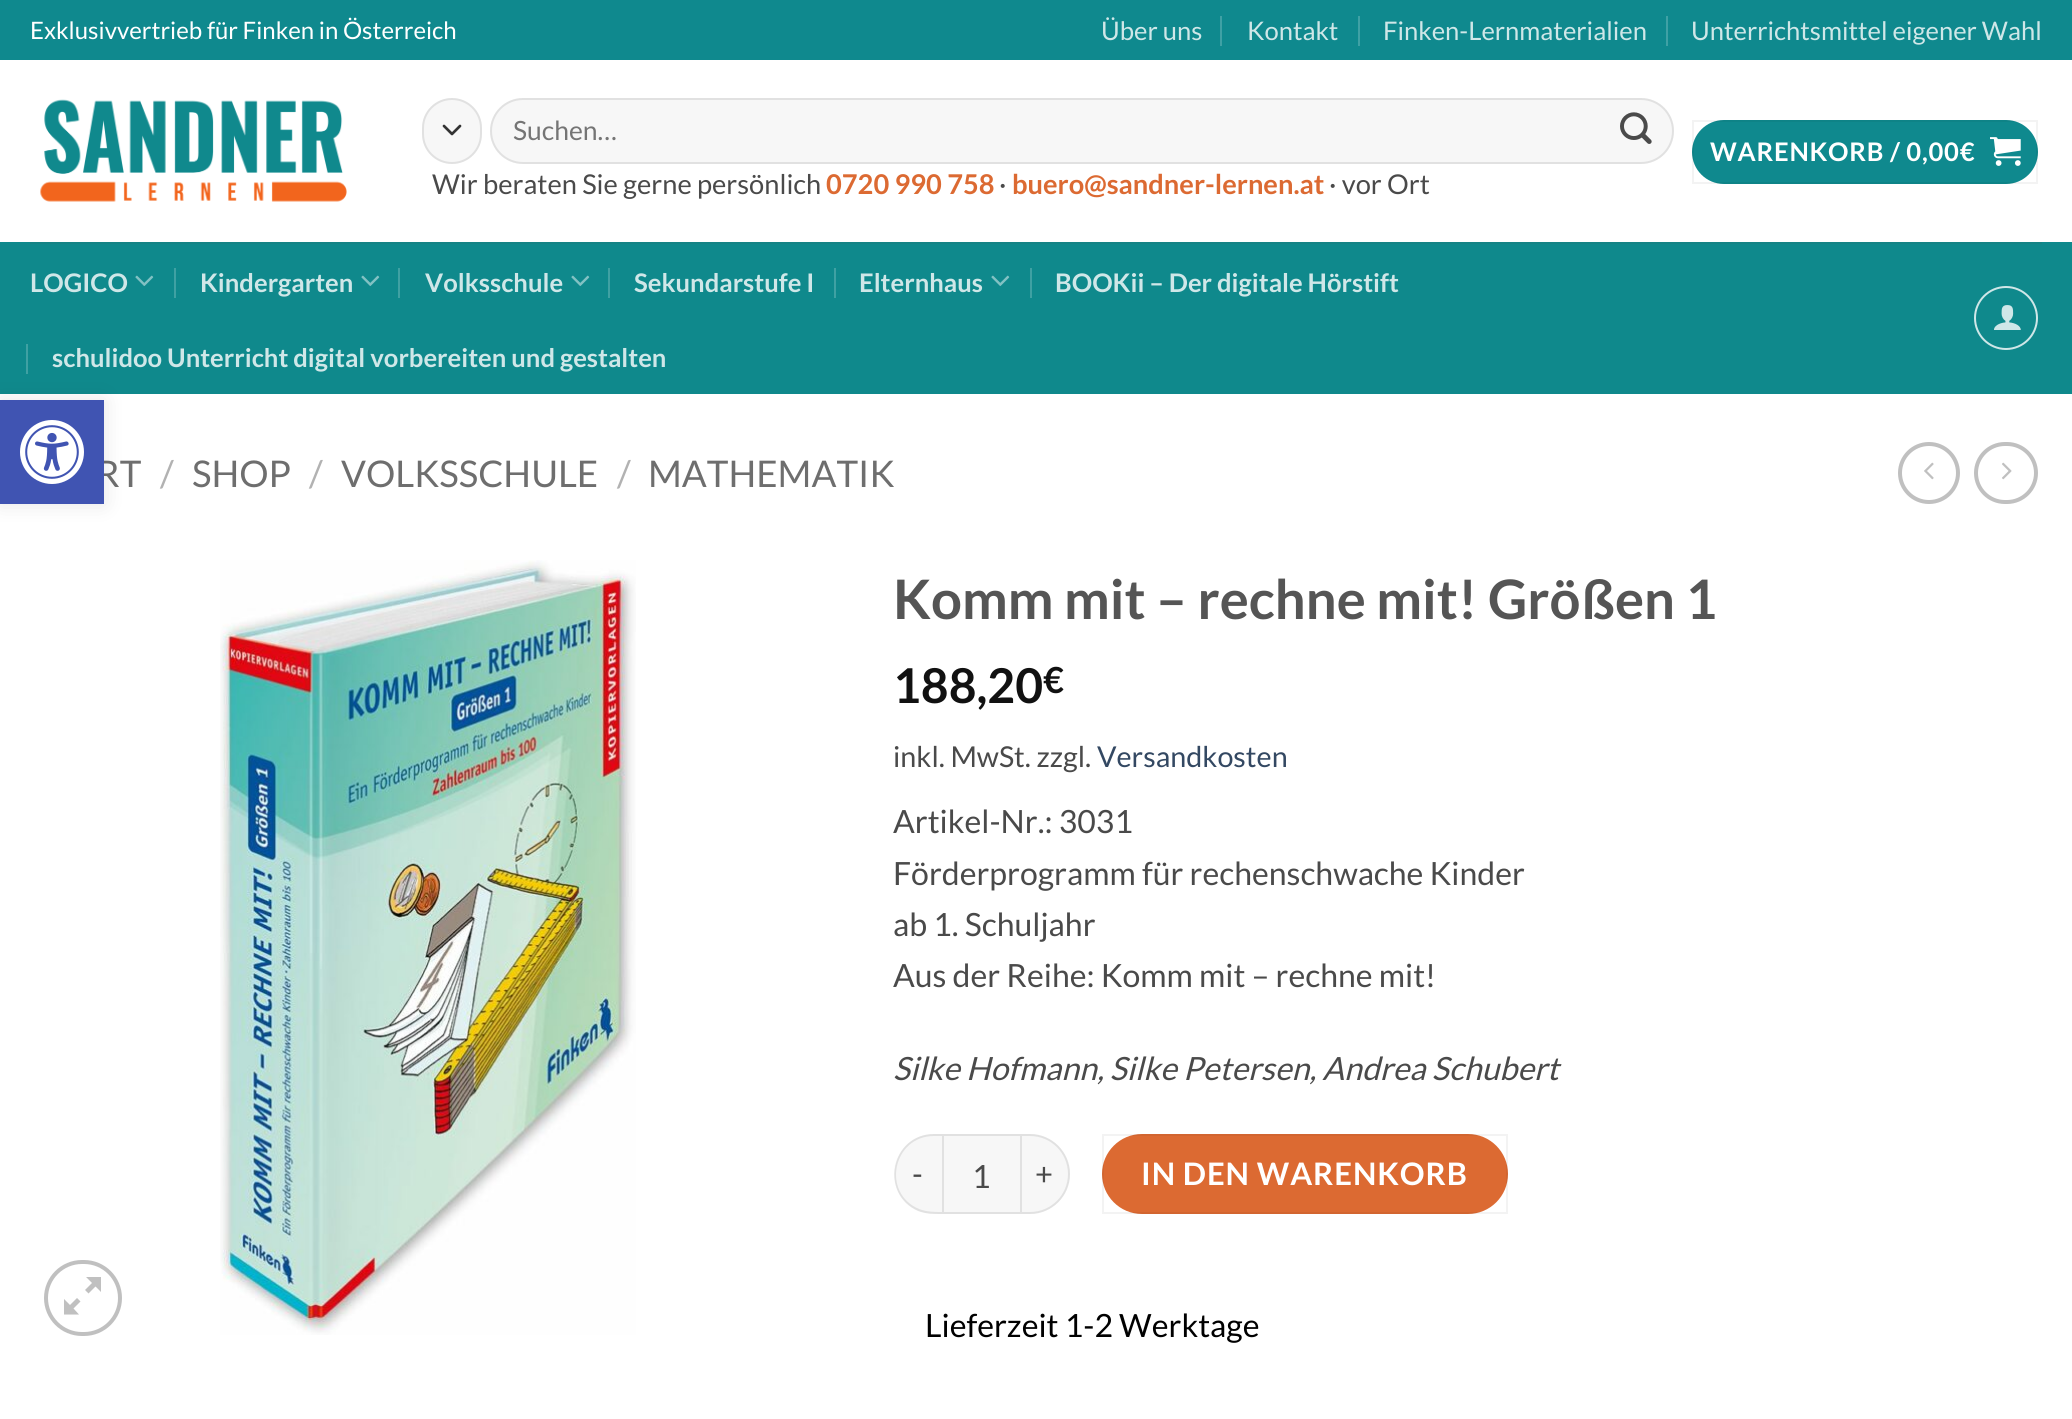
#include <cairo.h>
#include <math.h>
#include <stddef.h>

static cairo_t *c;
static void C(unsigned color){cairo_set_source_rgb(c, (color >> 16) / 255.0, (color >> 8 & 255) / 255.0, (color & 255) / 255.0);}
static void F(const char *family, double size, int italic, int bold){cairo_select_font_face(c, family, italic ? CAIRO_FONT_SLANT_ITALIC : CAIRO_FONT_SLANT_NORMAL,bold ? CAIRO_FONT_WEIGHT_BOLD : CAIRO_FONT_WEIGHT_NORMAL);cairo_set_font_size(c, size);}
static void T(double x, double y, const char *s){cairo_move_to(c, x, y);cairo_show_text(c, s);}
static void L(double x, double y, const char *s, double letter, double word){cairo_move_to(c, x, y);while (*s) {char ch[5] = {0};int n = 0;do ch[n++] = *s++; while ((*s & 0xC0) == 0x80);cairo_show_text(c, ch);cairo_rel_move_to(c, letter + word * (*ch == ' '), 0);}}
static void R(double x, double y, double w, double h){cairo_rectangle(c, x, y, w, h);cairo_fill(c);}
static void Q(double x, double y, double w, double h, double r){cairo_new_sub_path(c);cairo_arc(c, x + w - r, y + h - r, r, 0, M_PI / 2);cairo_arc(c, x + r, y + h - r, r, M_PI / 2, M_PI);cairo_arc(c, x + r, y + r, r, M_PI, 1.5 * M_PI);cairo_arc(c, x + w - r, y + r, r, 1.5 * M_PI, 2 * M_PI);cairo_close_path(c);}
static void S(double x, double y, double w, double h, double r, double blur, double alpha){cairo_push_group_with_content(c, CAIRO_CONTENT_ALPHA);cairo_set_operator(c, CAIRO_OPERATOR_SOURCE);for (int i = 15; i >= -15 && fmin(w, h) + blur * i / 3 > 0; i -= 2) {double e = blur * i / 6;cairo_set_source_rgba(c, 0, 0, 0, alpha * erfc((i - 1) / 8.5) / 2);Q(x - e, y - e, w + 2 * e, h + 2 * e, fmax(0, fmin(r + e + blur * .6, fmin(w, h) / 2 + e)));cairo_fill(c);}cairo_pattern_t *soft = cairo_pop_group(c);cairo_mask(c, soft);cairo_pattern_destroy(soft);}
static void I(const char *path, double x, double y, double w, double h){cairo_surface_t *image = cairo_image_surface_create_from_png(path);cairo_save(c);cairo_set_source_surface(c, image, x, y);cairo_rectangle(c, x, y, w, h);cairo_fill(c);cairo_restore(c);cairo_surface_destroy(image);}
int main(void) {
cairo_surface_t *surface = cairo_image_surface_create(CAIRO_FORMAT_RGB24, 2072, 1419);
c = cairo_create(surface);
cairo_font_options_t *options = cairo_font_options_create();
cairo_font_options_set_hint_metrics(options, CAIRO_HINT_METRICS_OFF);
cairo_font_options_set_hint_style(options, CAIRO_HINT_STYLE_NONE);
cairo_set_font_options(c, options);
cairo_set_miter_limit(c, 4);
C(0xffffff);
cairo_paint(c);
C(0x0f898e);
R(0,0,2072,60);
F("Lato",24,0,0);
C(0xffffff);
T(30,39,"Exklusivvertrieb für Finken in Österreich");
F("Lato",25.6,0,0);
C(0xcfe7e8);
T(1101,40,"Über uns");
C(0x3fa1a5);
R(1220,16,2,30);
C(0xcfe7e8);
T(1247,40,"Kontakt");
C(0x3fa1a5);
R(1358,16,2,30);
C(0xcfe7e8);
T(1383,40,"Finken-Lernmaterialien");
C(0x3fa1a5);
R(1666,16,2,30);
C(0xcfe7e8);
T(1691,40,"Unterrichtsmittel eigener Wahl");
I("1.png",40,99,307,103);
C(0xf7f7f7);
Q(422,98,60,66,30);
cairo_fill(c);
cairo_new_path(c);
cairo_move_to(c,444,126);
cairo_line_to(c,452,134);
cairo_line_to(c,460,126);
C(0x333333);
cairo_set_line_width(c,2.7);
cairo_set_line_cap(c,CAIRO_LINE_CAP_ROUND);
cairo_set_line_join(c,CAIRO_LINE_JOIN_ROUND);
cairo_stroke(c);
Q(423,99,58,64,29);
cairo_set_source_rgba(c,0,0,0,0.09);
cairo_set_line_width(c,2);
cairo_set_line_cap(c,CAIRO_LINE_CAP_BUTT);
cairo_set_line_join(c,CAIRO_LINE_JOIN_MITER);
cairo_stroke(c);
C(0xf7f7f7);
Q(490,98,1184,66,33);
cairo_fill(c);
Q(491,99,1182,64,32);
cairo_set_source_rgba(c,0,0,0,0.09);
cairo_stroke(c);
F("Lato",26.5,0,0);
C(0x757575);
T(513,140,"Suchen…");
I("2.png",1620,112,32,32);
F("Lato",27.25,0,0);
C(0x4a4a4a);
T(432,194,"Wir beraten Sie gerne persönlich");
F("Lato",27.25,0,1);
C(0xdc6a32);
T(826,194,"0720 990 758");
F("Lato",27.25,0,0);
C(0x4a4a4a);
T(999,194,"·");
F("Lato",27.25,0,1);
C(0xdc6a32);
T(1012,194,"buero@sandner-lernen.at");
F("Lato",27.25,0,0);
C(0x4a4a4a);
T(1329,194,"· vor Ort");
C(0x0f898e);
Q(1692,120,346,64,32);
cairo_fill(c);
cairo_rectangle(c,1693,121,344,62);
cairo_set_source_rgba(c,0,0,0,0.05);
cairo_stroke(c);
F("Lato",25.6,0,1);
C(0xffffff);
L(1710,161,"WARENKORB / 0,00€",.75,0);
I("3.png",1990,137,31,29);
C(0x0f898c);
R(0,242,2072,152);
C(0x158385);
R(30,242,2012,2);
C(0xcfe7e8);
T(30,292,"LOGICO");
I("4.png",135,275,19,11);
C(0x3fa1a3);
R(174,268,2,30);
C(0xcfe7e8);
T(200,292,"Kindergarten");
I("4.png",361,275,19,11);
C(0x3fa1a3);
R(398,268,2,30);
C(0xcfe7e8);
T(425,292,"Volksschule");
I("4.png",571,275,19,11);
C(0x3fa1a3);
R(608,268,2,30);
C(0xcfe7e8);
T(634,292,"Sekundarstufe I");
C(0x3fa1a3);
R(834,268,2,30);
C(0xcfe7e8);
T(859,292,"Elternhaus");
I("4.png",991,275,19,11);
C(0x3fa1a3);
R(1030,268,2,30);
C(0xcfe7e8);
T(1055,292,"BOOKii – Der digitale Hörstift");
C(0x3fa1a3);
R(26,344,2,30);
C(0xcfe7e8);
T(52,367,"schulidoo Unterricht digital vorbereiten und gestalten");
cairo_new_path(c);
cairo_arc(c,2006,318,31,0,2 * M_PI);
cairo_stroke(c);
I("5.png",1994,305,27,25);
F("Lato",36.75,0,0);
C(0x6e6e6e);
T(96,487,"RT");
C(0xb2b2b2);
T(160,487,"/");
C(0x6e6e6e);
T(192,487,"SHOP");
C(0xb2b2b2);
T(309,487,"/");
C(0x6e6e6e);
T(341,487,"VOLKSSCHULE");
C(0xb2b2b2);
T(617,487,"/");
C(0x6e6e6e);
T(648,487,"MATHEMATIK");
cairo_new_path(c);
cairo_arc(c,1929,473,29,0,2 * M_PI);
C(0xc0c0c0);
cairo_set_line_width(c,4);
cairo_stroke(c);
I("6.png",1924,462,10,18);
Q(1976,444,60,58,29);
cairo_stroke(c);
I("7.png",2002,462,10,18);
Q(46,1262,74,72,36);
cairo_stroke(c);
cairo_new_path(c);
cairo_move_to(c,101,1277);
cairo_line_to(c,101,1292);
cairo_line_to(c,95.5,1286.5);
cairo_line_to(c,88.5,1293.5);
cairo_line_to(c,85,1290);
cairo_line_to(c,92,1283);
cairo_line_to(c,86,1277);
cairo_close_path(c);
cairo_move_to(c,80.5,1301.5);
cairo_line_to(c,73.5,1308.5);
cairo_line_to(c,79,1314.5);
cairo_line_to(c,64,1314.5);
cairo_line_to(c,64,1299);
cairo_line_to(c,70,1305);
cairo_line_to(c,77,1298);
cairo_close_path(c);
cairo_fill(c);
I("8.png",220,560,416,775);
F("Lato",54.4,0,1);
C(0x555555);
T(893,619,"Komm mit – rechne mit! Größen 1");
F("Lato",48,0,1);
C(0x111111);
T(893,703,"188,20");
F("Lato",36,0,1);
T(1043,693,"€");
F("Lato",28.75,0,0);
C(0x4a4a4a);
T(893,767,"inkl. MwSt. zzgl.");
C(0x334862);
T(1097,767,"Versandkosten");
F("Lato",32,0,0);
C(0x4a4a4a);
T(893,833,"Artikel-Nr.: 3031");
T(893,885,"Förderprogramm für rechenschwache Kinder");
T(893,936,"ab 1. Schuljahr");
T(893,987,"Aus der Reihe: Komm mit – rechne mit!");
F("Lato",32,1,0);
T(893,1080,"Silke Hofmann, Silke Petersen, Andrea Schubert");
C(0xf7f7f7);
cairo_new_path(c);
cairo_move_to(c,934,1134);
cairo_line_to(c,942,1134);
cairo_line_to(c,942,1214);
cairo_line_to(c,934,1214);
cairo_curve_to(c,912,1214,894,1196,894,1174);
cairo_curve_to(c,894,1152,912,1134,934,1134);
cairo_close_path(c);
cairo_fill(c);
cairo_set_source_rgba(c,0,0,0,0.09);
cairo_set_fill_rule(c,CAIRO_FILL_RULE_EVEN_ODD);
cairo_new_path(c);
cairo_move_to(c,934,1134);
cairo_line_to(c,942,1134);
cairo_line_to(c,942,1214);
cairo_curve_to(c,934,1214,926,1214,918,1211);
cairo_curve_to(c,879,1194,891,1134,934,1134);
cairo_close_path(c);
cairo_move_to(c,934,1136);
cairo_line_to(c,942,1136);
cairo_line_to(c,942,1212);
cairo_curve_to(c,934,1212,927,1212,919,1209);
cairo_curve_to(c,881,1193,893,1136,934,1136);
cairo_close_path(c);
cairo_fill(c);
F("Lato",31,0,0);
C(0x4a4a4a);
L(912,1185,"-",.9,0);
C(0xf7f7f7);
cairo_rectangle(c,943,1135,78,78);
cairo_fill_preserve(c);
C(0xe1e1e1);
cairo_set_line_width(c,2);
cairo_stroke(c);
F("Lato",32,0,0);
C(0x4a4a4a);
T(972,1188,"1");
C(0xf7f7f7);
cairo_new_path(c);
cairo_move_to(c,1022,1134);
cairo_line_to(c,1030,1134);
cairo_curve_to(c,1052,1134,1070,1152,1070,1174);
cairo_curve_to(c,1070,1196,1052,1214,1030,1214);
cairo_line_to(c,1022,1214);
cairo_close_path(c);
cairo_fill(c);
cairo_set_source_rgba(c,0,0,0,0.09);
cairo_new_path(c);
cairo_move_to(c,1022,1134);
cairo_line_to(c,1030,1134);
cairo_curve_to(c,1052,1134,1070,1152,1070,1174);
cairo_curve_to(c,1070,1196,1052,1214,1030,1214);
cairo_line_to(c,1022,1214);
cairo_close_path(c);
cairo_move_to(c,1022,1136);
cairo_line_to(c,1030,1136);
cairo_curve_to(c,1051,1136,1068,1153,1068,1174);
cairo_curve_to(c,1068,1195,1051,1212,1030,1212);
cairo_line_to(c,1022,1212);
cairo_close_path(c);
cairo_fill(c);
F("Lato",31,0,0);
C(0x4a4a4a);
L(1035,1185,"+",.9,0);
C(0xdc6a32);
Q(1102,1134,406,80,40);
cairo_fill(c);
cairo_rectangle(c,1103,1135,404,78);
cairo_set_source_rgba(c,0,0,0,0.05);
cairo_stroke(c);
F("Lato",31,0,1);
C(0xffffff);
L(1141,1185,"IN DEN WARENKORB",.9,0);
F("Lato",32,0,0);
C(0x000000);
T(925,1337,"Lieferzeit 1-2 Werktage");
C(0x000000);
S(0,400,104,104,0,10,.1);
C(0x4054b2);
R(0,400,104,104);
I("9.png",20,420,64,64);
cairo_surface_write_to_png(surface, "o.png");
cairo_font_options_destroy(options);
cairo_destroy(c);
cairo_surface_destroy(surface);
return 0;
}
